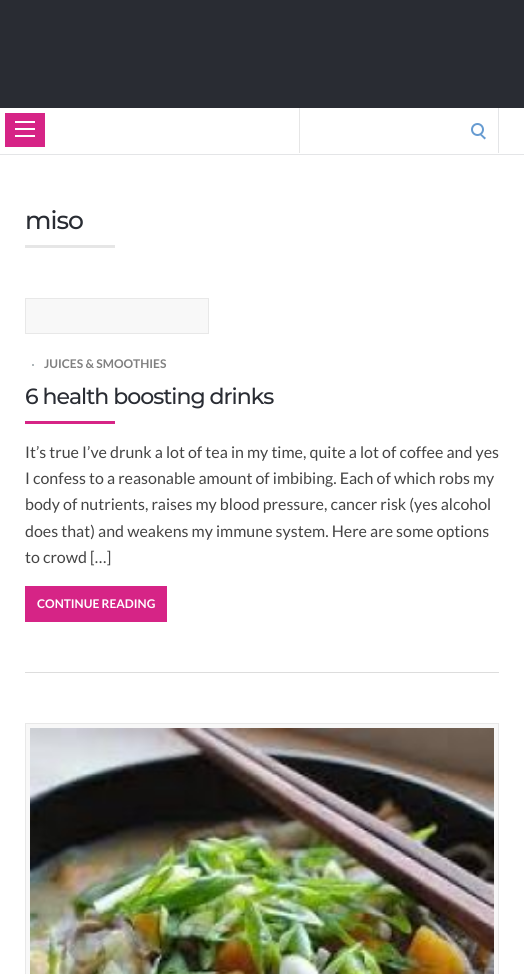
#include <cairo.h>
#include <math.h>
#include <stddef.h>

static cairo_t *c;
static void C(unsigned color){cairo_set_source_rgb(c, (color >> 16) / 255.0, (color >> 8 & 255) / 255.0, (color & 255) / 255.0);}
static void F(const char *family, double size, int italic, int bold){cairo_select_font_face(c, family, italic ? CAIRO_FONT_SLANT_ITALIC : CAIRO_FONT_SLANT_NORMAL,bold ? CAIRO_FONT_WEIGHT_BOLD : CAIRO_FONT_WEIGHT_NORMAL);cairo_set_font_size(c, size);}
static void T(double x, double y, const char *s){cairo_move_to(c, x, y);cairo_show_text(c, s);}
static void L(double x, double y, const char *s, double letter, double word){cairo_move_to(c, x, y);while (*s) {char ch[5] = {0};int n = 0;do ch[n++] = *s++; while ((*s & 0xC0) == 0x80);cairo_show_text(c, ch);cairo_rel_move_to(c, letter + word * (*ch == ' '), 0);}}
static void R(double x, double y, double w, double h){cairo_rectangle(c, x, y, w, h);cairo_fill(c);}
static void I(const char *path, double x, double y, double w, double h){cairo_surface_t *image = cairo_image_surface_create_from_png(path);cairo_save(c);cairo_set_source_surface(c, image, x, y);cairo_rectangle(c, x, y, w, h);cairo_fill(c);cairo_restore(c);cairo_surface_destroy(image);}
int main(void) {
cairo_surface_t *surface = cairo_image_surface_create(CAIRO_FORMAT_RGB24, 524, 974);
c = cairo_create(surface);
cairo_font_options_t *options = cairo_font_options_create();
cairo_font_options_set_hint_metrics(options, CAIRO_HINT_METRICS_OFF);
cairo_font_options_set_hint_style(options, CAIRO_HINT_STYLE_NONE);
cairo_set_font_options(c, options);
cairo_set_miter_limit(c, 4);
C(0xffffff);
cairo_paint(c);
C(0x292c33);
R(0,0,524,108);
C(0xe4e5e7);
R(0,154,524,1);
C(0xd62486);
R(5,113,40,34);
C(0xffffff);
R(15,121,20,2);
R(15,128,20,2);
R(15,135,20,2);
C(0xe4e5e7);
R(498,108,1,45);
C(0xe6e6e6);
R(299,108,1,45);
cairo_arc(c,477.5,129.5,5.5,0,2 * M_PI);
C(0x669bd1);
cairo_stroke(c);
cairo_new_path(c);
cairo_move_to(c,480,135);
cairo_line_to(c,481.5,134);
cairo_line_to(c,486,138);
cairo_line_to(c,484.5,139.5);
cairo_close_path(c);
cairo_fill(c);
F("Montserrat Medium",25,0,0);
C(0x292c33);
L(25,229,"miso",-1,0);
C(0xe6e6e6);
R(25,245,90,3);
C(0xdddddd);
R(25,672,474,1);
C(0xf8f8f8);
cairo_rectangle(c,25.5,298.5,183,35);
cairo_fill_preserve(c);
C(0xe8e8e8);
cairo_set_line_width(c,1);
cairo_stroke(c);
C(0xaeb6b9);
R(32,364,2,2);
F("Lato",12,0,1);
C(0x808080);
T(44,368,"JUICES & SMOOTHIES");
F("Montserrat Medium",22,0,0);
C(0x292c33);
L(25,404,"6 health boosting drinks",-1,0);
C(0xd62486);
R(25,421,90,3);
F("Lato",16,0,0);
C(0x444444);
T(25,458,"It’s true I’ve drunk a lot of tea in my time, quite a lot of coffee and yes");
T(25,484,"I confess to a reasonable amount of imbibing. Each of which robs my");
T(25,510,"body of nutrients, raises my blood pressure, cancer risk (yes alcohol");
T(25,537,"does that) and weakens my immune system. Here are some options");
T(25,563,"to crowd […]");
C(0xd62486);
R(25,586,142,36);
F("Lato",12,0,1);
C(0xffffff);
T(37,608,"CONTINUE READING");
C(0xf8f8f8);
cairo_rectangle(c,25.5,723.5,473,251);
cairo_fill_preserve(c);
C(0xe8e8e8);
cairo_stroke(c);
I("1.png",30,728,464,246);
cairo_surface_write_to_png(surface, "o.png");
cairo_font_options_destroy(options);
cairo_destroy(c);
cairo_surface_destroy(surface);
return 0;
}
